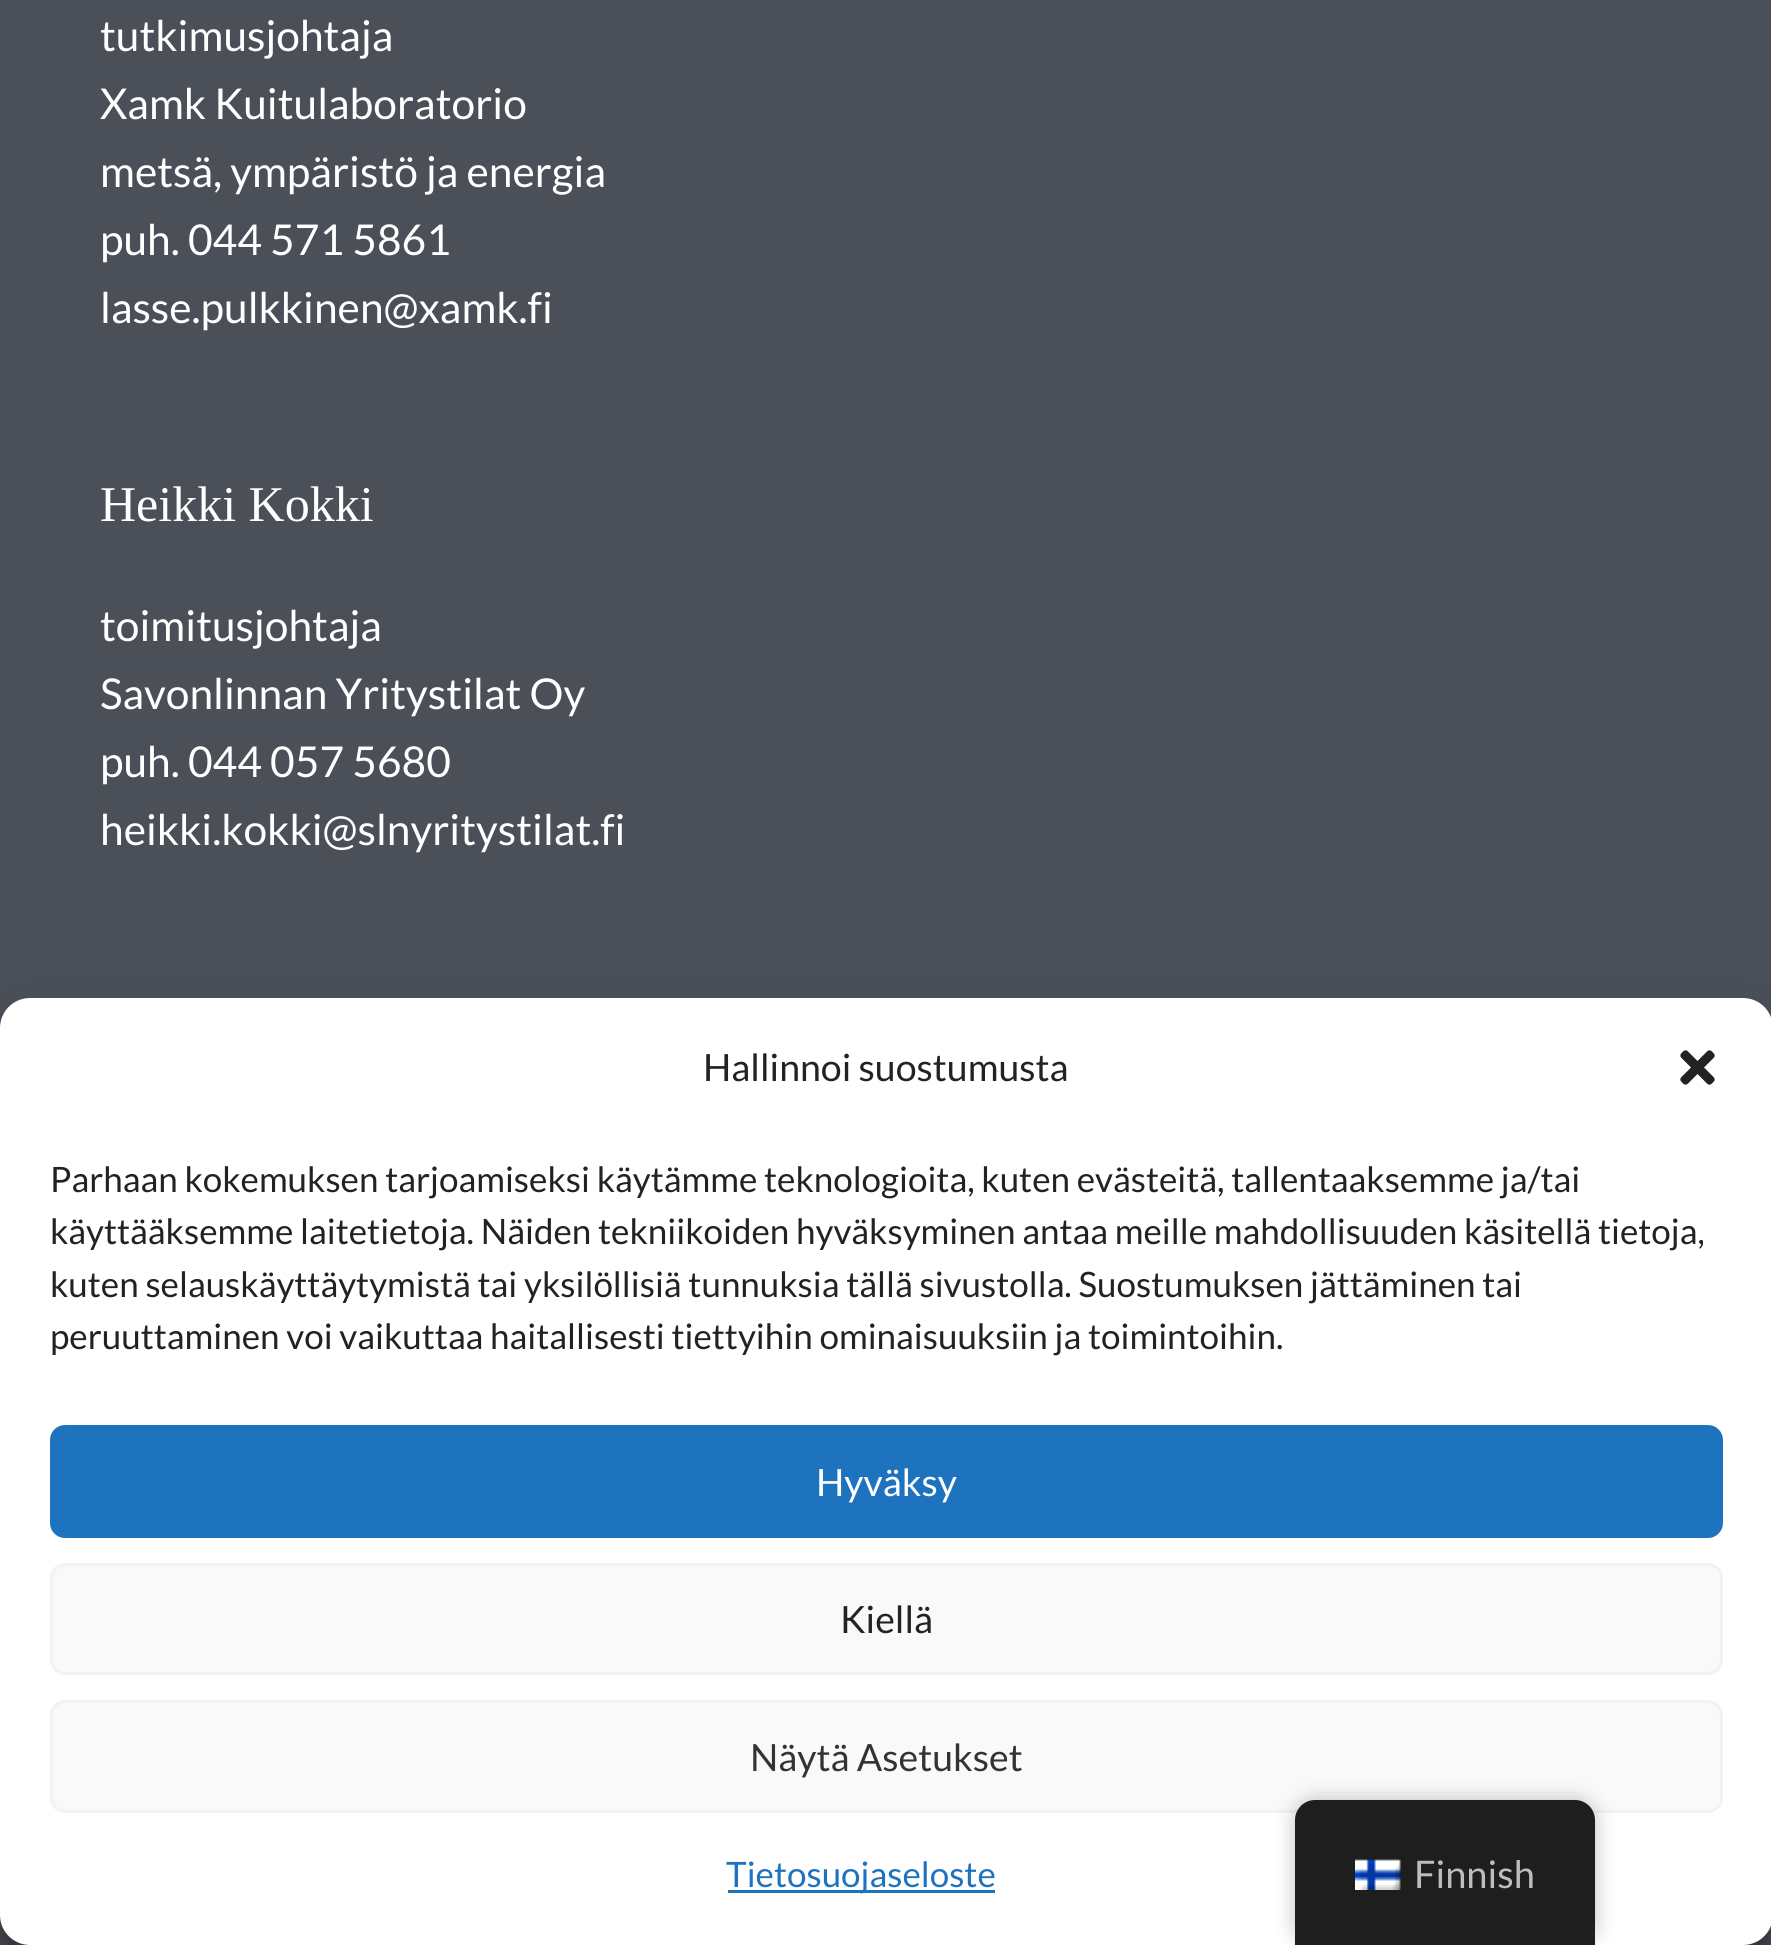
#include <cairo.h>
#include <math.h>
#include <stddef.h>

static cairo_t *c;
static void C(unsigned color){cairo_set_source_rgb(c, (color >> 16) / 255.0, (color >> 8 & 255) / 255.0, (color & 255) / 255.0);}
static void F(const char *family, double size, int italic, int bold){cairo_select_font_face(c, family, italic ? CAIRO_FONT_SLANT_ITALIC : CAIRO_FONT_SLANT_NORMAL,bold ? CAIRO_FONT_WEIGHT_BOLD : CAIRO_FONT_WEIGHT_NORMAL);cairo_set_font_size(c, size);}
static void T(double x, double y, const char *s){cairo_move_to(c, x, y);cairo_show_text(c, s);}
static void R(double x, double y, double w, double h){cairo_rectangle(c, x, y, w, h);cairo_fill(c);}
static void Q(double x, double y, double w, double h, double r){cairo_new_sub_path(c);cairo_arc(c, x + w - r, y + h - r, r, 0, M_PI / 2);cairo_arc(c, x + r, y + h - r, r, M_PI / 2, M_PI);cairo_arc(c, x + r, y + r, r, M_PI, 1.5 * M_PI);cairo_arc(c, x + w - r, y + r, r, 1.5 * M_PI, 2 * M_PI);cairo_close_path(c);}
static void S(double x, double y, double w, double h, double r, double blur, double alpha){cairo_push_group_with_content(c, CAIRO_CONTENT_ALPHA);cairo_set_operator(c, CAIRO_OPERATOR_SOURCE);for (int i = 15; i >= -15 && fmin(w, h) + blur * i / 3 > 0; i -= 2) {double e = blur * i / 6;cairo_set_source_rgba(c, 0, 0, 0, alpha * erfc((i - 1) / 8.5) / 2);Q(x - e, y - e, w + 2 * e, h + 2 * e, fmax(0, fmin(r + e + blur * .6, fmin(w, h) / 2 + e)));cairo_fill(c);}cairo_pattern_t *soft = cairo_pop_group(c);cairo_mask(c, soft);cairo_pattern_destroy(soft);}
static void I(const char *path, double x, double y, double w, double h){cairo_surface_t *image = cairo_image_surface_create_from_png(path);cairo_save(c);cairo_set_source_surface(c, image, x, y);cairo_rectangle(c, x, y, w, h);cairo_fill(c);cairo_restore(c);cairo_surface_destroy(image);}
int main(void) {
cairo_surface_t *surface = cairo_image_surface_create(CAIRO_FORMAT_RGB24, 1771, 1945);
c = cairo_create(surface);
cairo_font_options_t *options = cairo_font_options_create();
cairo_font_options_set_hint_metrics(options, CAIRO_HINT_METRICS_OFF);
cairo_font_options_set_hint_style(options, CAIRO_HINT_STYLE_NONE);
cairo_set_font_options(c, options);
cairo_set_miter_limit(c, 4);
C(0x4b4f58);
cairo_paint(c);
F("Lato",42.5,0,0);
C(0xffffff);
T(100,51,"tutkimusjohtaja");
T(100,119,"Xamk Kuitulaboratorio");
T(100,187,"metsä, ympäristö ja energia");
T(100,255,"puh. 044 571 5861");
T(100,323,"lasse.pulkkinen@xamk.fi");
F("Liberation Serif",50,0,0);
T(100,521,"Heikki Kokki");
F("Lato",42.5,0,0);
T(100,641,"toimitusjohtaja");
T(100,709,"Savonlinnan Yritystilat Oy");
T(100,777,"puh. 044 057 5680");
T(100,845,"heikki.kokki@slnyritystilat.fi");
C(0x000000);
S(0,1013,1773,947,30,7.5,.23);
S(0,1023,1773,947,30,25,.19);
C(0xffffff);
Q(0,998,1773,947,30);
cairo_fill(c);
F("Lato",37.5,0,0);
C(0x222222);
T(703,1081,"Hallinnoi suostumusta");
I("1.png",1680,1050,35,35);
F("Lato",35,0,0);
T(50,1192,"Parhaan kokemuksen tarjoamiseksi käytämme teknologioita, kuten evästeitä, tallentaaksemme ja/tai");
T(50,1244,"käyttääksemme laitetietoja. Näiden tekniikoiden hyväksyminen antaa meille mahdollisuuden käsitellä tietoja,");
T(50,1297,"kuten selauskäyttäytymistä tai yksilöllisiä tunnuksia tällä sivustolla. Suostumuksen jättäminen tai");
T(50,1349,"peruuttaminen voi vaikuttaa haitallisesti tiettyihin ominaisuuksiin ja toimintoihin.");
C(0x1e73be);
Q(51.5,1426.5,1670,110,13.5);
cairo_fill_preserve(c);
cairo_set_line_width(c,3);
cairo_stroke(c);
F("Lato",37.5,0,0);
C(0xffffff);
T(816,1496,"Hyväksy");
C(0xf9f9f9);
Q(51.5,1564.5,1670,109,13.5);
cairo_fill_preserve(c);
C(0xf2f2f2);
cairo_stroke(c);
C(0x222222);
T(840,1633,"Kiellä");
C(0xf9f9f9);
Q(51.5,1701.5,1670,110,13.5);
cairo_fill_preserve(c);
C(0xf2f2f2);
cairo_stroke(c);
C(0x333333);
T(750,1771,"Näytä Asetukset");
C(0x1e73be);
R(728,1890,267,3);
F("Lato",35,0,0);
T(726,1887,"Tietosuojaseloste");
C(0x000000);
S(1295,1800,300,145,20,10,.25);
C(0x1e1e1e);
cairo_new_path(c);
cairo_move_to(c,1315,1800);
cairo_line_to(c,1575,1800);
cairo_curve_to(c,1586,1800,1595,1809,1595,1820);
cairo_line_to(c,1595,1945);
cairo_line_to(c,1295,1945);
cairo_line_to(c,1295,1820);
cairo_curve_to(c,1295,1809,1304,1800,1315,1800);
cairo_close_path(c);
cairo_fill(c);
I("2.png",1355,1859,46,31);
F("Lato",38,0,0);
C(0xbdbdbd);
T(1414,1888,"Finnish");
cairo_surface_write_to_png(surface, "o.png");
cairo_font_options_destroy(options);
cairo_destroy(c);
cairo_surface_destroy(surface);
return 0;
}
